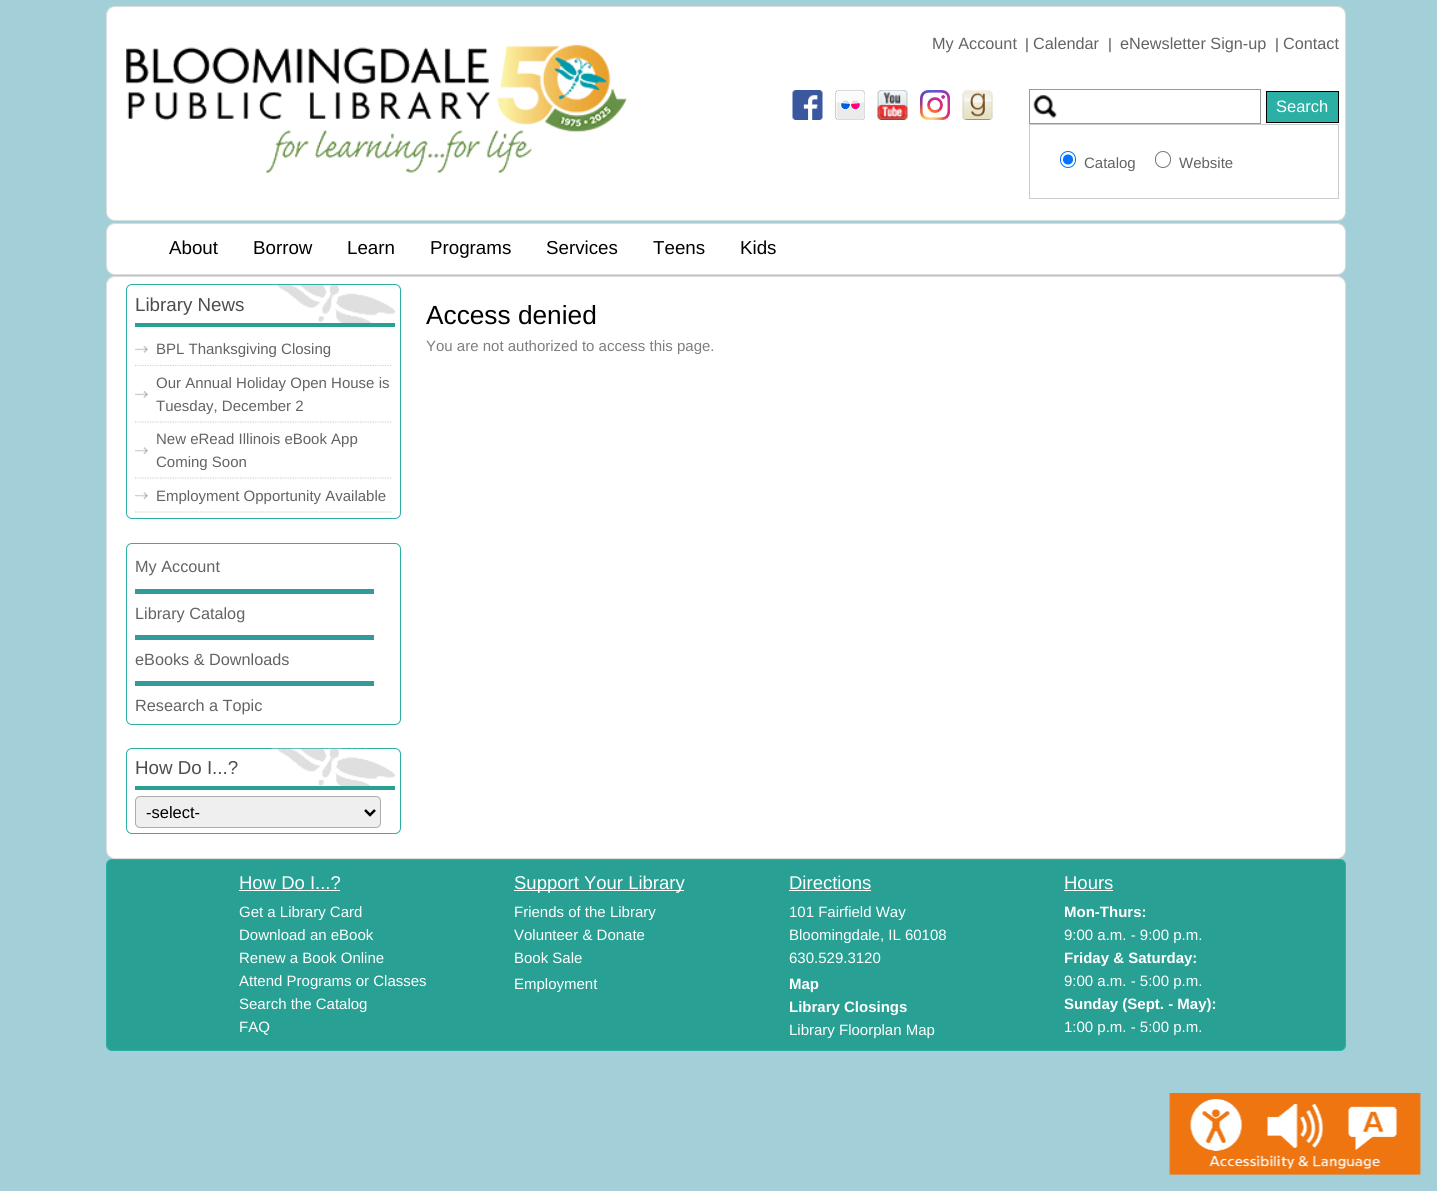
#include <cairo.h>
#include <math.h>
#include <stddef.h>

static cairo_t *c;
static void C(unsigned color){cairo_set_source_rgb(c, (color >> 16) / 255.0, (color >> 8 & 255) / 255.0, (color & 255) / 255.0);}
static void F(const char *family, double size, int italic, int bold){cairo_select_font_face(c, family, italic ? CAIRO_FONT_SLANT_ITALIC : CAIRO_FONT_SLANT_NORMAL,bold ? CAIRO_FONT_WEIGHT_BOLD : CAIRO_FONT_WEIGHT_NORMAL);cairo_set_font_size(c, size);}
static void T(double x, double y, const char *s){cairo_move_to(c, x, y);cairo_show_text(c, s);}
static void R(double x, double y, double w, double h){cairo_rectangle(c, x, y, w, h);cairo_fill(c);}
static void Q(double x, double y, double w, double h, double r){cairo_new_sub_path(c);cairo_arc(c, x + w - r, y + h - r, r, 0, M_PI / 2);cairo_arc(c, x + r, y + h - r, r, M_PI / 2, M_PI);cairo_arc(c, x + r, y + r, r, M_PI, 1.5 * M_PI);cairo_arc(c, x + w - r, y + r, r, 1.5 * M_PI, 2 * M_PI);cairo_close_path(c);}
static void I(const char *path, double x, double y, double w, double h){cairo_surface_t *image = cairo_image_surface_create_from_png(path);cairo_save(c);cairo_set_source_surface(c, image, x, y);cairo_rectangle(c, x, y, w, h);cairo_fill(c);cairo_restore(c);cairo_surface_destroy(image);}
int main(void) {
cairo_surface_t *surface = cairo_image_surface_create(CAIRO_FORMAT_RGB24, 1437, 1191);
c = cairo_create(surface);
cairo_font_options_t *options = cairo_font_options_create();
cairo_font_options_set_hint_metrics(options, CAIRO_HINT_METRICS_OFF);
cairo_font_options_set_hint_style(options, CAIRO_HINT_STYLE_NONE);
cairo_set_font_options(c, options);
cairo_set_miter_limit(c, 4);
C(0xa3d0d8);
cairo_paint(c);
C(0xffffff);
Q(106.5,6.5,1239,214,8.5);
cairo_fill_preserve(c);
C(0xdbdbdb);
cairo_set_line_width(c,1);
cairo_stroke(c);
I("1.png",126,45,501,128);
I("2.png",792,90,31,30);
I("3.png",835,90,30,30);
I("4.png",877,90,31,30);
I("5.png",920,90,30,30);
I("6.png",962,90,31,30);
F("Liberation Sans",16.25,0,0);
C(0x636363);
T(932,49,"My Account");
F("Liberation Sans",15,0,0);
C(0x4d4d4d);
T(1025,49,"|");
F("Liberation Sans",16.25,0,0);
C(0x636363);
T(1033,49,"Calendar");
F("Liberation Sans",15,0,0);
C(0x4d4d4d);
T(1108,49,"|");
F("Liberation Sans",16.25,0,0);
C(0x636363);
T(1120,49,"eNewsletter Sign-up");
F("Liberation Sans",15,0,0);
C(0x4d4d4d);
T(1275,49,"|");
F("Liberation Sans",16.25,0,0);
C(0x636363);
T(1283,49,"Contact");
I("7.png",1033,95,24,23);
cairo_rectangle(c,1029.5,89.5,231,34);
C(0x999999);
cairo_stroke(c);
C(0x2cafa4);
cairo_rectangle(c,1266.5,91.5,72,31);
cairo_fill_preserve(c);
C(0x000000);
cairo_stroke(c);
F("Liberation Sans",16.5,0,0);
C(0xffffff);
T(1276,112,"Search");
cairo_rectangle(c,1029.5,124.5,309,74);
C(0xcccccc);
cairo_stroke(c);
Q(1060.5,151.5,15,16,7.5);
C(0x0075ff);
cairo_stroke(c);
cairo_arc(c,1068,159.5,5,0,2 * M_PI);
cairo_fill(c);
F("Liberation Sans",15,0,0);
C(0x636363);
T(1084,168,"Catalog");
Q(1155.5,151.5,15,16,7.5);
C(0x767676);
cairo_stroke(c);
C(0x636363);
T(1179,168,"Website");
C(0xffffff);
Q(106.5,223.5,1239,51,8.5);
cairo_fill_preserve(c);
C(0xdbdbdb);
cairo_stroke(c);
F("Liberation Sans",18.75,0,0);
C(0x000000);
T(169,254,"About");
T(253,254,"Borrow");
T(347,254,"Learn");
T(430,254,"Programs");
T(546,254,"Services");
T(653,254,"Teens");
T(740,254,"Kids");
C(0xffffff);
Q(106.5,276.5,1239,582,8.5);
cairo_fill_preserve(c);
C(0xdbdbdb);
cairo_stroke(c);
Q(126.5,284.5,274,234,5.5);
C(0x2cafa4);
cairo_stroke(c);
I("8.png",277,285,118,38);
C(0x28a094);
R(135,323,260,4);
C(0x4d4d4d);
T(135,311,"Library News");
I("9.png",135,346,13,7);
cairo_new_path(c);
cairo_move_to(c,135,365.5);
cairo_line_to(c,392.5,365.5);
C(0xd4d2d2);
cairo_set_line_width(c,1.2);
cairo_set_dash(c,(double[]){1.25,1.25},2,0);
cairo_stroke(c);
F("Liberation Sans",15,0,0);
C(0x636363);
T(156,354,"BPL Thanksgiving Closing");
I("9.png",135,391,13,7);
cairo_new_path(c);
cairo_move_to(c,135,422);
cairo_line_to(c,392.5,422);
C(0xd4d2d2);
cairo_stroke(c);
C(0x636363);
T(156,388,"Our Annual Holiday Open House is");
T(156,411,"Tuesday, December 2");
I("10.png",135,447,13,7);
cairo_new_path(c);
cairo_move_to(c,135,478);
cairo_line_to(c,392.5,478);
C(0xd4d2d2);
cairo_stroke(c);
C(0x636363);
T(156,444,"New eRead Illinois eBook App");
T(156,467,"Coming Soon");
I("10.png",135,492,13,7);
cairo_new_path(c);
cairo_move_to(c,135,512);
cairo_line_to(c,392.5,512);
C(0xd4d2d2);
cairo_stroke(c);
C(0x636363);
T(156,501,"Employment Opportunity Available");
Q(126.5,543.5,274,181,5.5);
C(0x2cafa4);
cairo_set_line_width(c,1);
cairo_set_dash(c,NULL,0,0);
cairo_stroke(c);
F("Liberation Sans",16.25,0,0);
C(0x636363);
T(135,572,"My Account");
C(0x339999);
R(135,589,239,5);
C(0x636363);
T(135,619,"Library Catalog");
C(0x339999);
R(135,635,239,5);
C(0x636363);
T(135,665,"eBooks & Downloads");
C(0x339999);
R(135,681,239,5);
C(0x636363);
T(135,711,"Research a Topic");
Q(126.5,748.5,274,85,5.5);
C(0x2cafa4);
cairo_stroke(c);
I("11.png",271,748,124,38);
C(0x28a094);
R(135,786,260,4);
F("Liberation Sans",18.75,0,0);
C(0x4d4d4d);
T(135,774,"How Do I...?");
C(0xefefef);
Q(135.5,796.5,245,31,4.5);
cairo_fill_preserve(c);
C(0xacacac);
cairo_stroke(c);
cairo_new_path(c);
cairo_move_to(c,365,810);
cairo_line_to(c,370,815);
cairo_line_to(c,375,810);
C(0x000000);
cairo_set_line_width(c,2.5);
cairo_stroke(c);
F("Liberation Sans",16.5,0,0);
T(146,818,"-select-");
F("Liberation Sans",26.25,0,0);
T(426,324,"Access denied");
F("Liberation Sans",15,0,0);
C(0x7e7e7e);
T(426,351,"You are not authorized to access this page.");
C(0x28a094);
Q(106.5,859.5,1239,191,5.5);
cairo_fill_preserve(c);
C(0x2cafa4);
cairo_set_line_width(c,1);
cairo_stroke(c);
F("Liberation Sans",18.5,0,0);
C(0xffffff);
T(239,889,"How Do I...?");
R(239,890,101,1);
F("Liberation Sans",15,0,0);
T(239,917,"Get a Library Card");
T(239,940,"Download an eBook");
T(239,963,"Renew a Book Online");
T(239,986,"Attend Programs or Classes");
T(239,1009,"Search the Catalog");
T(239,1032,"FAQ");
R(514,890,170,1);
F("Liberation Sans",18.5,0,0);
T(514,889,"Support Your Library");
F("Liberation Sans",15,0,0);
T(514,917,"Friends of the Library");
T(514,940,"Volunteer & Donate");
T(514,963,"Book Sale");
T(514,989,"Employment");
F("Liberation Sans",18.5,0,0);
T(789,889,"Directions");
R(789,890,82,1);
F("Liberation Sans",15,0,0);
T(789,917,"101 Fairfield Way");
T(789,940,"Bloomingdale, IL 60108");
T(789,963,"630.529.3120");
F("Liberation Sans",15,0,1);
T(789,989,"Map");
T(789,1012,"Library Closings");
F("Liberation Sans",15,0,0);
T(789,1035,"Library Floorplan Map");
F("Liberation Sans",18.5,0,0);
T(1064,889,"Hours");
R(1064,890,49,1);
F("Liberation Sans",15,0,1);
T(1064,917,"Mon-Thurs:");
F("Liberation Sans",15,0,0);
T(1064,940,"9:00 a.m. - 9:00 p.m.");
F("Liberation Sans",15,0,1);
T(1064,963,"Friday & Saturday:");
F("Liberation Sans",15,0,0);
T(1064,986,"9:00 a.m. - 5:00 p.m.");
F("Liberation Sans",15,0,1);
T(1064,1009,"Sunday (Sept. - May):");
F("Liberation Sans",15,0,0);
T(1064,1032,"1:00 p.m. - 5:00 p.m.");
I("12.png",1169,1093,252,82);
I("13.png",1169,1093,252,82);
cairo_surface_write_to_png(surface, "o.png");
cairo_font_options_destroy(options);
cairo_destroy(c);
cairo_surface_destroy(surface);
return 0;
}
